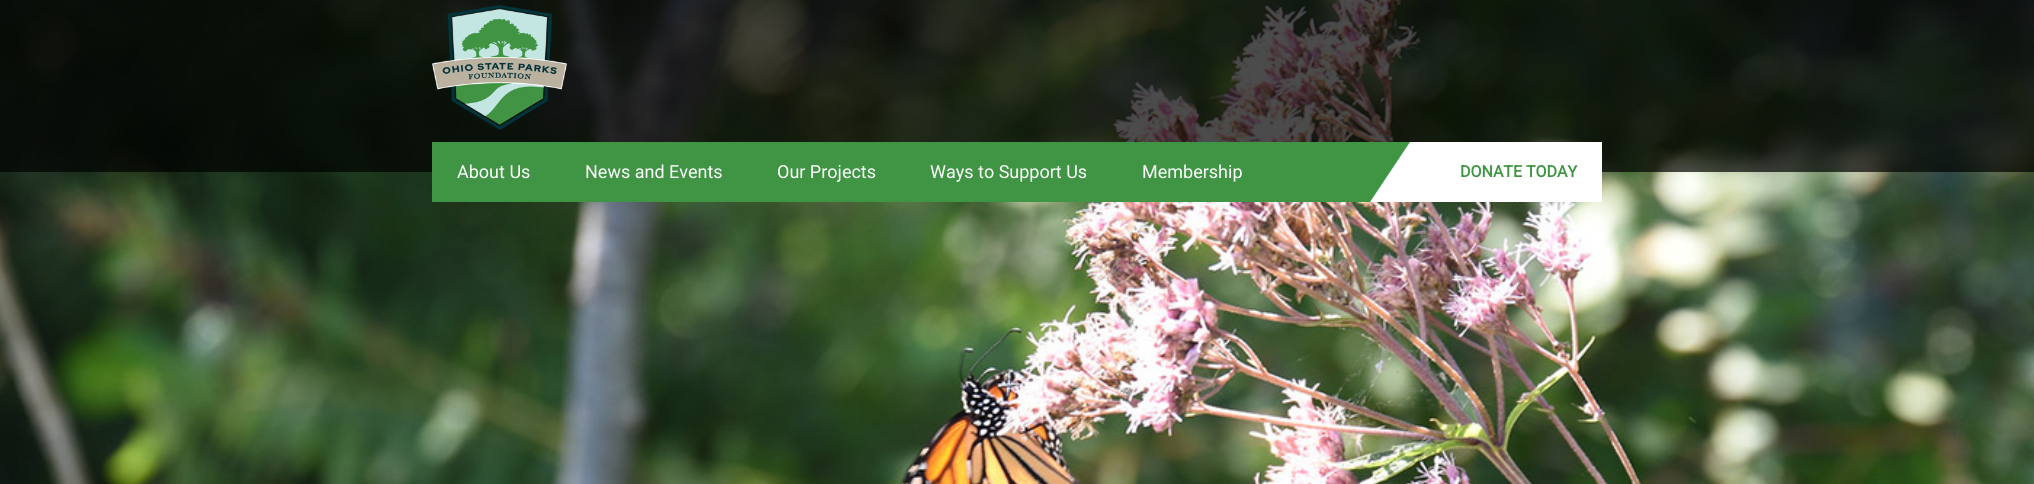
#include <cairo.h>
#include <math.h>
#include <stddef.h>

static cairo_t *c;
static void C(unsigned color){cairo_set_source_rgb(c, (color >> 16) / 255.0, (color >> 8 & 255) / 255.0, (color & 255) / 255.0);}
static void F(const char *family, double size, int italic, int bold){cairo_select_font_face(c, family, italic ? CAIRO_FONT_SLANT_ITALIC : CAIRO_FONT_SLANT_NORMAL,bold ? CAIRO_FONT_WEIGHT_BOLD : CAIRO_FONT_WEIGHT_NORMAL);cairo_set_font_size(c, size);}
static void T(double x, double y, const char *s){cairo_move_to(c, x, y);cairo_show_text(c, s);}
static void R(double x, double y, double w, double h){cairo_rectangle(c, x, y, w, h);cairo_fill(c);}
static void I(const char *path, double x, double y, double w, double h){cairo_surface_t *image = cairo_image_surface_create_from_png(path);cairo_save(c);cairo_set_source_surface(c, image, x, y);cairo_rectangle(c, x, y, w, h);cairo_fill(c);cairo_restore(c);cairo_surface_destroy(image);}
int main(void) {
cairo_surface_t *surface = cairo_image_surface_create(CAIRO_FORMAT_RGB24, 2034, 484);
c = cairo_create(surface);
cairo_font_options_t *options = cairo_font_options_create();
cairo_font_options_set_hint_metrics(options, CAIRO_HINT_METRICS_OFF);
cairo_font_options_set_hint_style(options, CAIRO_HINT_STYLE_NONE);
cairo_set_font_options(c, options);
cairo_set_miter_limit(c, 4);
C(0xffffff);
cairo_paint(c);
I("1.png",0,0,2034,484);
cairo_set_source_rgba(c,0,0,0,0.7);
R(0,0,2034,172);
I("2.png",432,5,135,125);
C(0x409544);
R(432,142,978,60);
F("Roboto",18,0,0);
C(0xffffff);
T(457,178,"About Us");
T(585,178,"News and Events");
T(777,178,"Our Projects");
T(930,178,"Ways to Support Us");
T(1142,178,"Membership");
R(1410,142,192,60);
cairo_new_path(c);
cairo_move_to(c,1410,142);
cairo_line_to(c,1410,202);
cairo_line_to(c,1370,202);
cairo_close_path(c);
cairo_fill(c);
F("Roboto",16,0,1);
C(0x409544);
T(1460,177,"DONATE TODAY");
cairo_surface_write_to_png(surface, "o.png");
cairo_font_options_destroy(options);
cairo_destroy(c);
cairo_surface_destroy(surface);
return 0;
}
